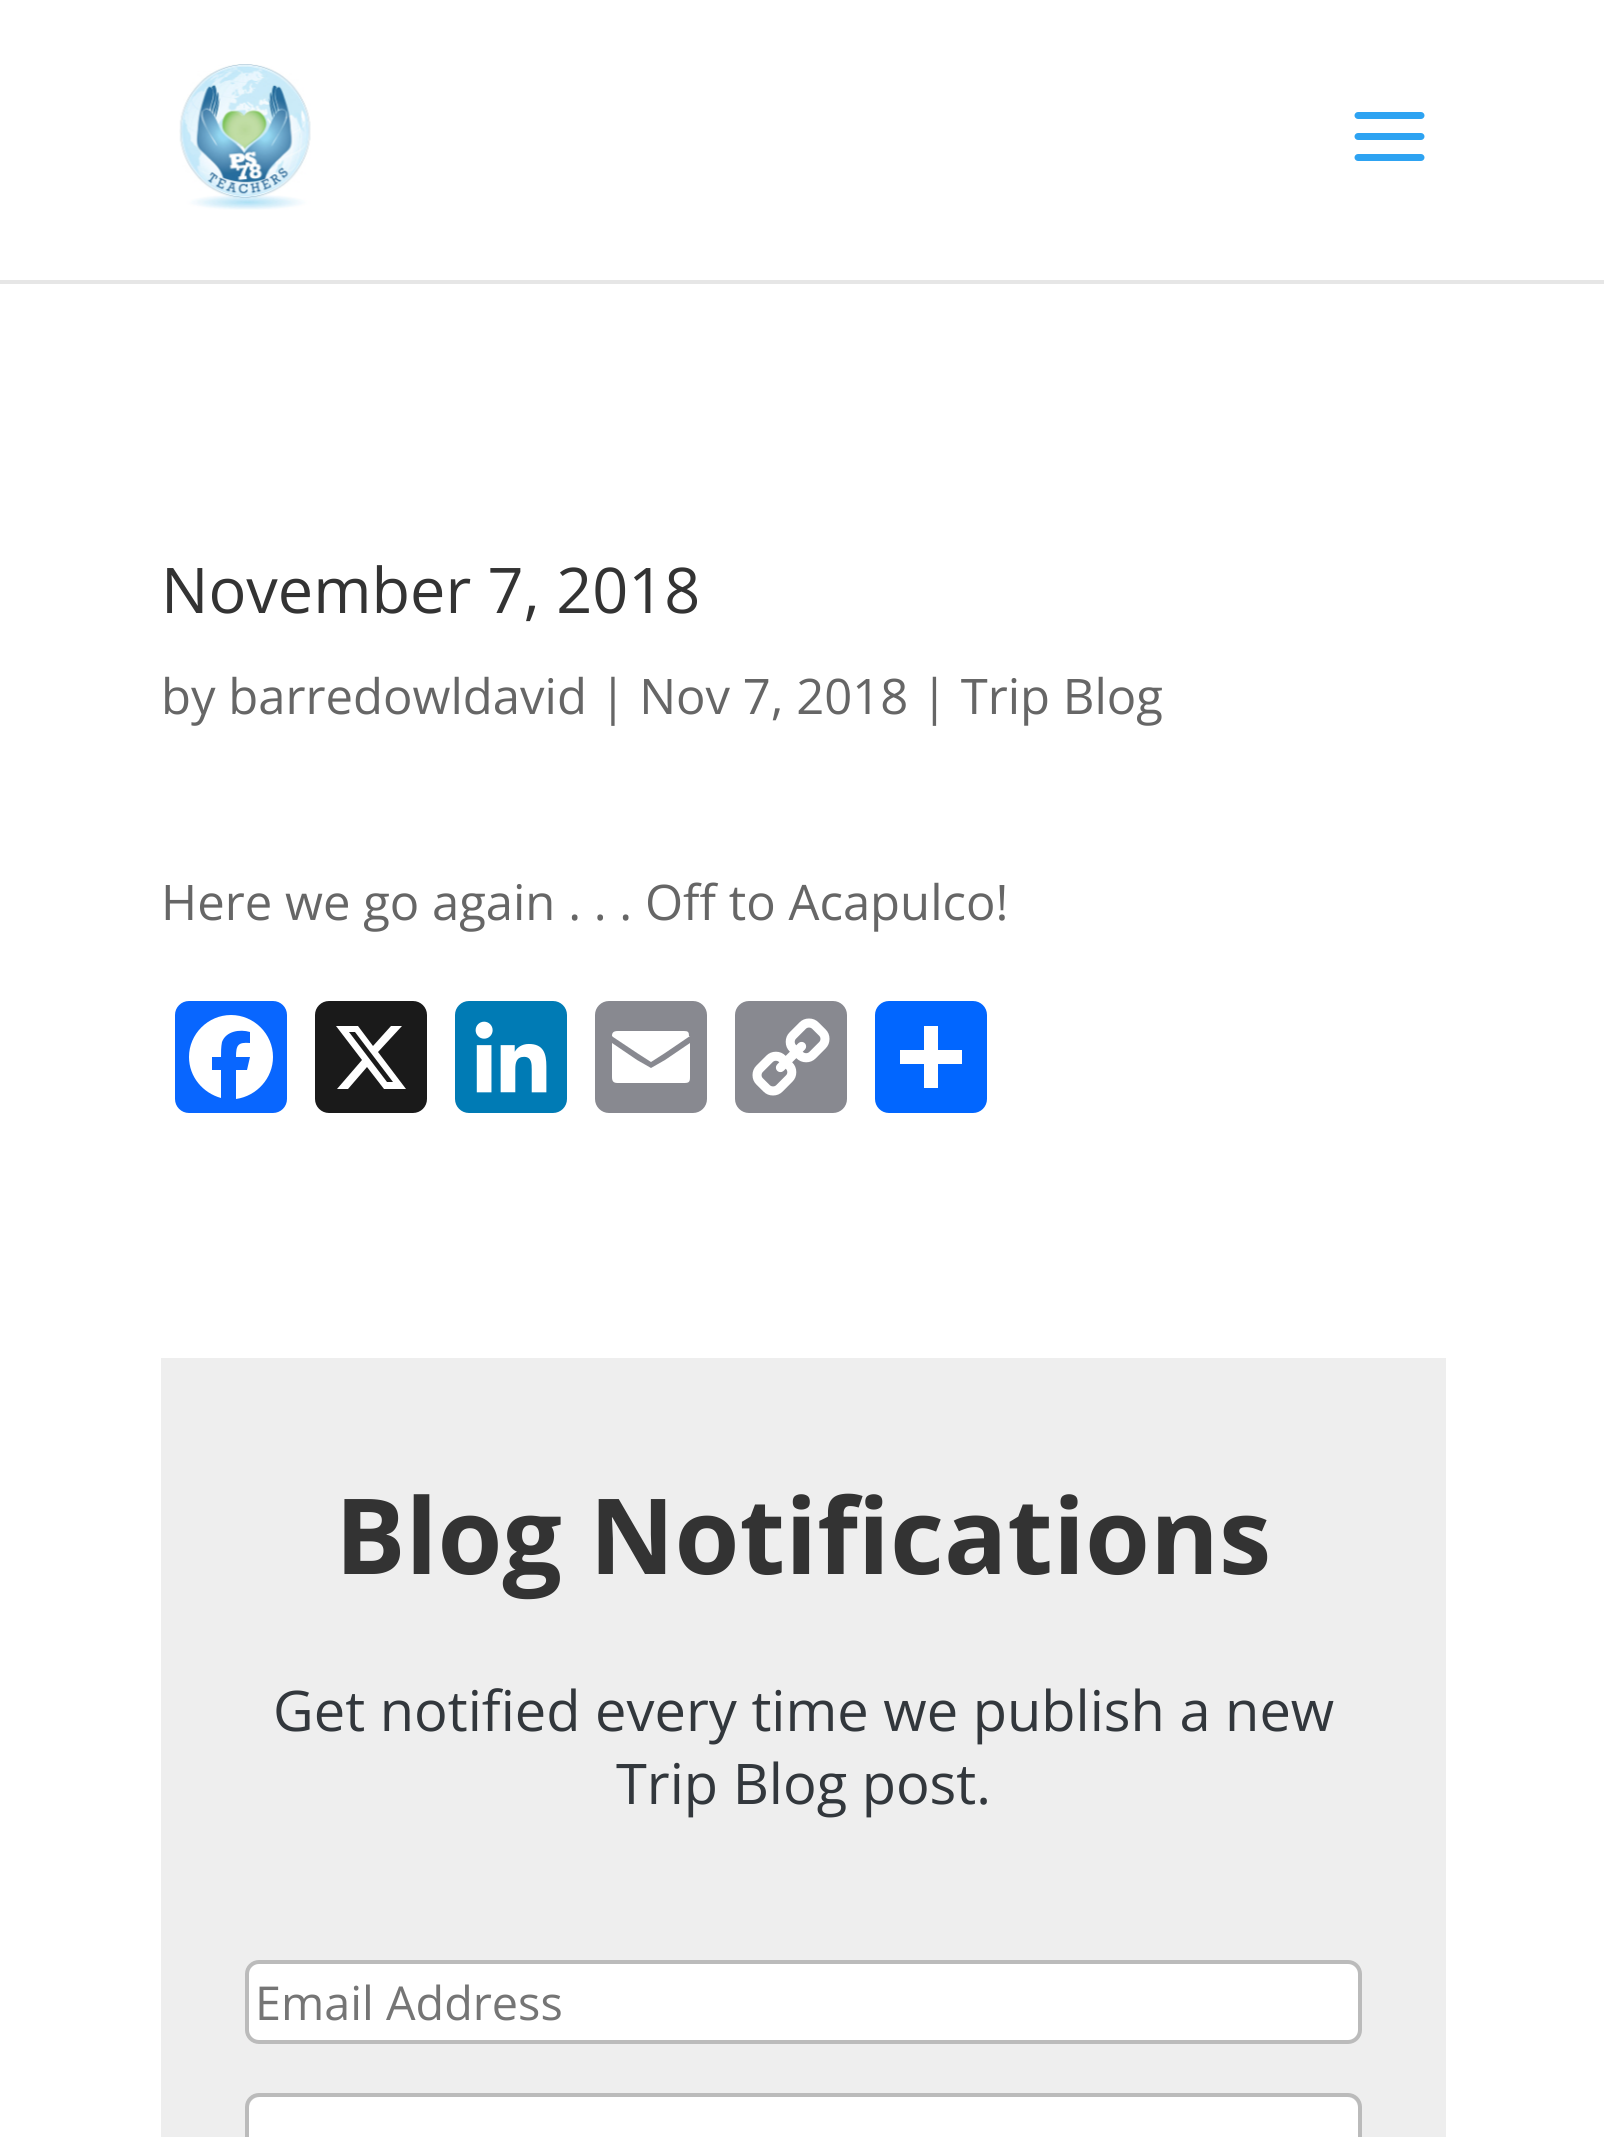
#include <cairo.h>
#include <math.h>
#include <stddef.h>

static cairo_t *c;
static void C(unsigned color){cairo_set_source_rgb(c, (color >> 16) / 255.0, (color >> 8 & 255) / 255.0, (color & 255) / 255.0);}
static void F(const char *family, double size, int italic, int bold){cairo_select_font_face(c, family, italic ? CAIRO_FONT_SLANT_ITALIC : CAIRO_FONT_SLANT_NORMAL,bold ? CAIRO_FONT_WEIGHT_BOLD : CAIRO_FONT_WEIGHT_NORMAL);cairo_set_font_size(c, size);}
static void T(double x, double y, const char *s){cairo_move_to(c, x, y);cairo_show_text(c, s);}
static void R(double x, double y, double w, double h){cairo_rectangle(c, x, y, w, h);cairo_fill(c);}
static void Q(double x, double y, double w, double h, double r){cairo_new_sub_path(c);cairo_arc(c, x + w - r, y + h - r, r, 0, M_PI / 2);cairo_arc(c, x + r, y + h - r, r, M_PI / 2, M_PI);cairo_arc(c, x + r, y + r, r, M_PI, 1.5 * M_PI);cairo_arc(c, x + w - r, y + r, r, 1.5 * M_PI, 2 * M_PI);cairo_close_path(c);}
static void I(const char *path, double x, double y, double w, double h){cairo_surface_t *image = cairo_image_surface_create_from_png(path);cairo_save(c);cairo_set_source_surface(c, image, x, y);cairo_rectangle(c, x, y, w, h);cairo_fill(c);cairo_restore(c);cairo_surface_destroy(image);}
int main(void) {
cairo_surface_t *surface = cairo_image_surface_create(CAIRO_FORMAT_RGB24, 1604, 2137);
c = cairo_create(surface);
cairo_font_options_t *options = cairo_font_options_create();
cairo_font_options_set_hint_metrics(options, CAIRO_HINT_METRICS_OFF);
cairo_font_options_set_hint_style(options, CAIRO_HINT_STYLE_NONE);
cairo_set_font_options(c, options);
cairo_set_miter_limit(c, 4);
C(0xffffff);
cairo_paint(c);
C(0xe6e6e6);
cairo_new_path(c);
cairo_move_to(c,0,280);
cairo_line_to(c,0,284);
cairo_line_to(c,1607,284);
cairo_line_to(c,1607,4);
cairo_line_to(c,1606,4);
cairo_line_to(c,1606,280);
cairo_close_path(c);
cairo_fill(c);
I("1.png",179,64,132,146);
I("2.png",1354,112,71,49);
F("Open Sans",63,0,0);
C(0x333333);
T(161,613,"November 7, 2018");
F("Open Sans",49,0,0);
C(0x666666);
T(161,714,"by barredowldavid | Nov 7, 2018 | Trip Blog");
T(161,920,"Here we go again . . . Off to Acapulco!");
C(0x0866ff);
Q(175,1001,112,112,14);
cairo_fill(c);
C(0xffffff);
cairo_new_path(c);
cairo_move_to(c,273,1057);
cairo_curve_to(c,273,1034,254,1015,231,1015);
cairo_curve_to(c,208,1015,189,1034,189,1057);
cairo_curve_to(c,189,1077,203,1093,221,1098);
cairo_line_to(c,221,1070);
cairo_line_to(c,212,1070);
cairo_line_to(c,212,1057);
cairo_line_to(c,221,1057);
cairo_curve_to(c,221,1052,221,1047,222,1042);
cairo_curve_to(c,226,1031,240,1029,250,1032);
cairo_line_to(c,250,1043);
cairo_curve_to(c,238,1042,236,1045,236,1057);
cairo_line_to(c,250,1057);
cairo_line_to(c,247,1070);
cairo_line_to(c,236,1070);
cairo_line_to(c,236,1099);
cairo_curve_to(c,257,1096,273,1078,273,1057);
cairo_fill(c);
C(0x1a1a1a);
Q(315,1001,112,112,14);
cairo_fill(c);
C(0xffffff);
cairo_new_path(c);
cairo_move_to(c,391,1026);
cairo_line_to(c,402,1026);
cairo_line_to(c,378,1052);
cairo_line_to(c,406,1089);
cairo_line_to(c,384,1089);
cairo_line_to(c,367,1067);
cairo_line_to(c,348,1089);
cairo_line_to(c,337,1089);
cairo_line_to(c,362,1060);
cairo_line_to(c,336,1026);
cairo_line_to(c,358,1026);
cairo_line_to(c,373,1046);
cairo_close_path(c);
cairo_move_to(c,387,1082);
cairo_line_to(c,393,1082);
cairo_line_to(c,355,1032);
cairo_line_to(c,349,1032);
cairo_close_path(c);
cairo_fill(c);
C(0x007bb5);
Q(455,1001,112,112,14);
cairo_fill(c);
I("3.png",475,1021,72,72);
C(0x888990);
Q(595,1001,112,112,14);
cairo_fill(c);
C(0xffffff);
cairo_new_path(c);
cairo_move_to(c,690,1077);
cairo_line_to(c,690,1043);
cairo_line_to(c,665,1060);
cairo_line_to(c,651,1068);
cairo_line_to(c,637,1060);
cairo_line_to(c,612,1043);
cairo_line_to(c,612,1077);
cairo_curve_to(c,612,1082,614,1083,618,1083);
cairo_line_to(c,684,1083);
cairo_curve_to(c,689,1083,690,1082,690,1077);
cairo_move_to(c,689,1036);
cairo_curve_to(c,689,1032,688,1031,684,1031);
cairo_line_to(c,618,1031);
cairo_curve_to(c,613,1031,612,1033,612,1036);
cairo_line_to(c,613,1037);
cairo_line_to(c,637,1053);
cairo_line_to(c,651,1062);
cairo_line_to(c,665,1053);
cairo_line_to(c,690,1036);
cairo_close_path(c);
cairo_fill(c);
C(0x888990);
Q(735,1001,112,112,14);
cairo_fill(c);
I("4.png",752,1018,78,78);
C(0x0166ff);
Q(875,1001,112,112,14);
cairo_fill(c);
C(0xffffff);
R(924,1026,14,62);
R(900,1050,62,14);
C(0xeeeeee);
R(161,1358,1285,779);
F("Open Sans",105,0,1);
C(0x333333);
T(335,1574,"Blog Notifications");
F("Open Sans",56,0,0);
C(0x32373c);
T(273,1731,"Get notified every time we publish a new");
T(616,1804,"Trip Blog post.");
C(0xffffff);
Q(247,1962,1113,80,12);
cairo_fill_preserve(c);
C(0xbbbbbb);
cairo_set_line_width(c,4);
cairo_stroke(c);
F("Open Sans",46.75,0,0);
C(0x757575);
T(255,2020,"Email Address");
C(0xffffff);
Q(249,2097,1109,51,11);
cairo_fill(c);
Q(247,2095,1113,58,12);
C(0xbbbbbb);
cairo_stroke(c);
cairo_surface_write_to_png(surface, "o.png");
cairo_font_options_destroy(options);
cairo_destroy(c);
cairo_surface_destroy(surface);
return 0;
}
